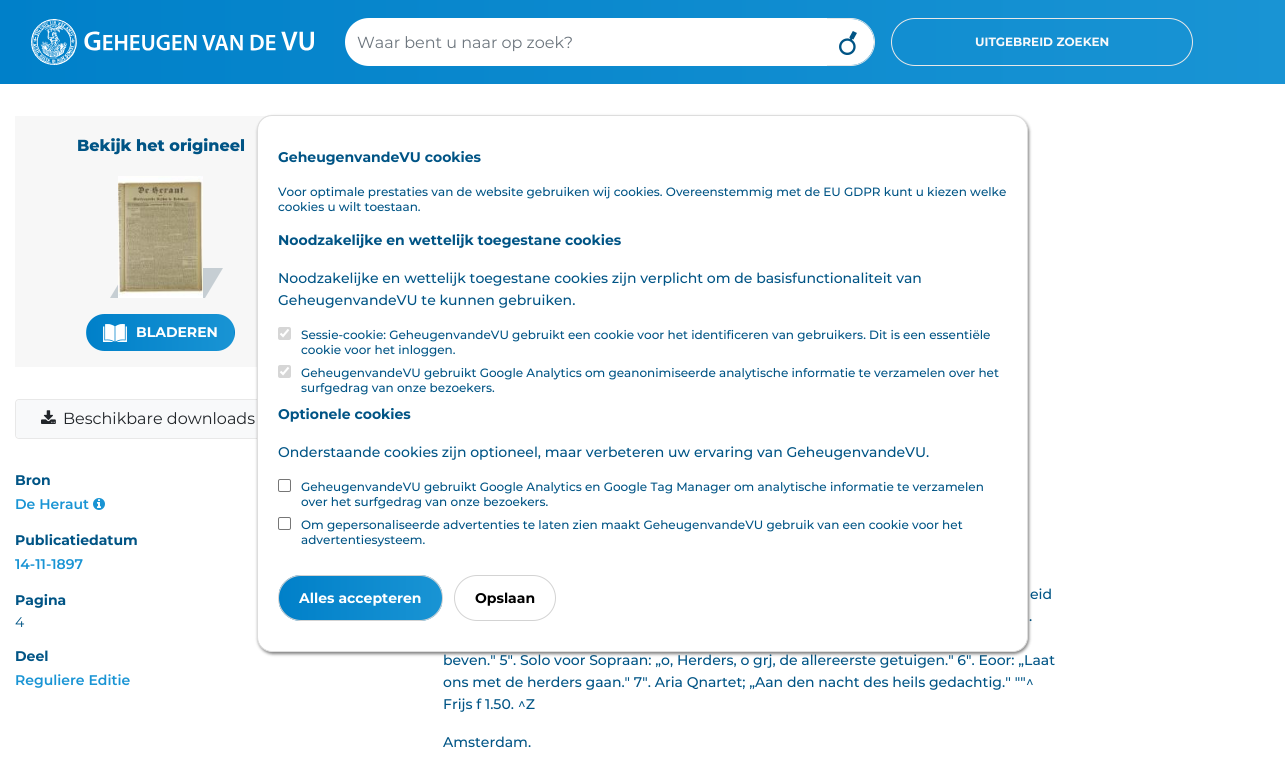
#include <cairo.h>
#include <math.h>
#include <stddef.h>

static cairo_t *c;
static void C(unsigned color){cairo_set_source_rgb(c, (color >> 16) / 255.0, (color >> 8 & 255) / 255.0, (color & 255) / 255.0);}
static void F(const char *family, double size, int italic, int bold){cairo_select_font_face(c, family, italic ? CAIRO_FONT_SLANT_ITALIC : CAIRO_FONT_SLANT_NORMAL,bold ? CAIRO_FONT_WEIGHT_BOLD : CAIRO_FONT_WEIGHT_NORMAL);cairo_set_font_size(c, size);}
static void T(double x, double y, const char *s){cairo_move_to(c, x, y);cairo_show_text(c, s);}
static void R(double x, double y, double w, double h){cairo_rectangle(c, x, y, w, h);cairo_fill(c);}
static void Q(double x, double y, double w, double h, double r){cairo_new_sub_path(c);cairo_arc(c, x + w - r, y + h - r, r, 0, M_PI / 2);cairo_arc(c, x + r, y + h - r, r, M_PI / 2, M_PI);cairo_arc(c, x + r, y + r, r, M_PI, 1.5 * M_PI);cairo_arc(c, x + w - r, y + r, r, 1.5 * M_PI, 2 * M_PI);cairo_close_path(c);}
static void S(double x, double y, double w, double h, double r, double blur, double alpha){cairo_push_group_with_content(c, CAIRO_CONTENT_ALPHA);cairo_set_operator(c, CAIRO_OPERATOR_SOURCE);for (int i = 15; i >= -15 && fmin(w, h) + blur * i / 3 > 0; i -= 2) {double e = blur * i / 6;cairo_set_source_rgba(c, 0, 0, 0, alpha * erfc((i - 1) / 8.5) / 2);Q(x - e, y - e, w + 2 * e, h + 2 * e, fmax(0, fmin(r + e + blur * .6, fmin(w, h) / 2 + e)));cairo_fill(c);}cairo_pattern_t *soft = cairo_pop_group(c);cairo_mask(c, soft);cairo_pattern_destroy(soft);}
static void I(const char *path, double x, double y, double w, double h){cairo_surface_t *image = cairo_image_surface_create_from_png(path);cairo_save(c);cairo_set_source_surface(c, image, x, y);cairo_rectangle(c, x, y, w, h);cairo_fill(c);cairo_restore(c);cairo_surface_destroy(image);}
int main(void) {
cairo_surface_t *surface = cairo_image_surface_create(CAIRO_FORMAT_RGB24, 1285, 767);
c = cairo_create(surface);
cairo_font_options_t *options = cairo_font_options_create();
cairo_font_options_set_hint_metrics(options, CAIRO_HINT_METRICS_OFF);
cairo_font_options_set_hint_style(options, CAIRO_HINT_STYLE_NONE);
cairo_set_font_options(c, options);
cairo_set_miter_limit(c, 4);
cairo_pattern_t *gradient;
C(0xffffff);
cairo_paint(c);
gradient = cairo_pattern_create_linear(1285,42,0,42);
cairo_pattern_add_color_stop_rgba(gradient,0,0.098,0.58,0.831,1);
cairo_pattern_add_color_stop_rgba(gradient,1,0,0.502,0.788,1);
cairo_set_source(c,gradient);
cairo_pattern_destroy(gradient);
R(0,0,1285,84);
I("1.png",31,19,283,46);
C(0xffffff);
cairo_new_path(c);
cairo_move_to(c,369,18);
cairo_line_to(c,828,18);
cairo_line_to(c,828,66);
cairo_line_to(c,369,66);
cairo_curve_to(c,355.5,66,345,55.5,345,42);
cairo_curve_to(c,345,28.5,355.5,18,369,18);
cairo_close_path(c);
cairo_fill(c);
F("Montserrat",16,0,0);
C(0x6c757d);
T(357,48,"Waar bent u naar op zoek?");
C(0xffffff);
cairo_new_path(c);
cairo_move_to(c,827,19);
cairo_line_to(c,851,19);
cairo_curve_to(c,863.5,19,874,29.5,874,42);
cairo_curve_to(c,874,54.5,863.5,65,851,65);
cairo_line_to(c,827,65);
cairo_close_path(c);
cairo_fill(c);
I("2.png",839,31,18,24);
C(0xe8e8e8);
cairo_set_fill_rule(c,CAIRO_FILL_RULE_EVEN_ODD);
cairo_new_path(c);
cairo_move_to(c,827,18);
cairo_line_to(c,851,18);
cairo_curve_to(c,864,18,875,29,875,42);
cairo_curve_to(c,875,55,864,66,851,66);
cairo_line_to(c,827,66);
cairo_close_path(c);
cairo_move_to(c,827,19);
cairo_line_to(c,851,19);
cairo_curve_to(c,864,19,874,29,874,42);
cairo_curve_to(c,874,55,864,65,851,65);
cairo_line_to(c,827,65);
cairo_close_path(c);
cairo_fill(c);
Q(891.5,18.5,301,47,23.5);
cairo_set_line_width(c,1);
cairo_stroke(c);
F("Montserrat",12,0,1);
C(0xf8f9fa);
T(975,46,"UITGEBREID ZOEKEN");
C(0xf7f7f7);
R(15,116,252,251);
F("Montserrat ExtraBold",16,0,0);
C(0x005485);
T(77,151,"Bekijk het origineel");
C(0xc6ced3);
cairo_set_fill_rule(c,CAIRO_FILL_RULE_WINDING);
cairo_new_path(c);
cairo_move_to(c,128,268);
cairo_line_to(c,223,268);
cairo_line_to(c,205,298);
cairo_line_to(c,110,298);
cairo_close_path(c);
cairo_fill(c);
I("3.png",118,176,85,122);
cairo_save(c);
Q(86,314,149,37,18.5);
cairo_clip(c);
gradient = cairo_pattern_create_linear(87,333,-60,333);
cairo_pattern_add_color_stop_rgba(gradient,0,0.098,0.58,0.831,1);
cairo_pattern_add_color_stop_rgba(gradient,1,0,0.502,0.788,1);
cairo_set_source(c,gradient);
cairo_pattern_destroy(gradient);
R(86,326,1,13);
gradient = cairo_pattern_create_linear(234,333,87,333);
cairo_pattern_add_color_stop_rgba(gradient,0,0.098,0.58,0.831,1);
cairo_pattern_add_color_stop_rgba(gradient,1,0,0.502,0.788,1);
cairo_set_source(c,gradient);
cairo_pattern_destroy(gradient);
R(87,314,147,37);
gradient = cairo_pattern_create_linear(381,333,234,333);
cairo_pattern_add_color_stop_rgba(gradient,0,0.098,0.58,0.831,1);
cairo_pattern_add_color_stop_rgba(gradient,1,0,0.502,0.788,1);
cairo_set_source(c,gradient);
cairo_pattern_destroy(gradient);
R(234,326,1,13);
cairo_restore(c);
I("4.png",103,324,24,18);
F("Montserrat",14,0,1);
C(0xffffff);
T(136,337,"BLADEREN");
Q(15.5,399.5,290,39,3.5);
C(0xe8e8e8);
cairo_stroke(c);
C(0xf8f9fa);
Q(16,400,289,38,4);
cairo_fill(c);
I("5.png",41,410,15,14);
F("Montserrat",16,0,0);
C(0x212529);
T(63,424,"Beschikbare downloads");
F("Montserrat",14,0,1);
C(0x005485);
T(15,485,"Bron");
F("Montserrat SemiBold",14,0,0);
C(0x1994d4);
T(15,509,"De Heraut");
I("6.png",93,498,12,12);
F("Montserrat",14,0,1);
C(0x005485);
T(15,545,"Publicatiedatum");
F("Montserrat SemiBold",14,0,0);
C(0x1994d4);
T(15,569,"14-11-1897");
F("Montserrat",14,0,1);
C(0x005485);
T(15,605,"Pagina");
F("Montserrat",14,0,0);
T(15,627,"4");
F("Montserrat",14,0,1);
T(15,661,"Deel");
F("Montserrat SemiBold",14,0,0);
C(0x1994d4);
T(15,685,"Reguliere Editie");
F("Montserrat Medium",14,0,0);
C(0x005485);
T(1030,599,"eid");
T(1029,621,".");
T(443,665,"beven.\" 5\". Solo voor Sopraan: „o, Herders, o grj, de allereerste getuigen.\" 6\". Eoor: „Laat");
T(443,687,"ons met de herders gaan.\" 7\". Aria Qnartet; „Aan den nacht des heils gedachtig.'' \"\"^");
T(443,709,"Frijs f 1.50. ^Z");
T(443,747,"Amsterdam.");
C(0x000000);
S(258,117,771,537,15,1.5,.5);
C(0xffffff);
Q(257.5,115.5,770,536,14.5);
cairo_fill_preserve(c);
C(0xdddddd);
cairo_stroke(c);
F("Montserrat",14,0,1);
C(0x005485);
T(278,162,"GeheugenvandeVU cookies");
F("Montserrat Medium",12,0,0);
T(278,196,"Voor optimale prestaties van de website gebruiken wij cookies. Overeenstemmig met de EU GDPR kunt u kiezen welke");
T(278,211,"cookies u wilt toestaan.");
F("Montserrat",14,0,1);
T(278,245,"Noodzakelijke en wettelijk toegestane cookies");
F("Montserrat Medium",14,0,0);
T(278,283,"Noodzakelijke en wettelijk toegestane cookies zijn verplicht om de basisfunctionaliteit van");
T(278,305,"GeheugenvandeVU te kunnen gebruiken.");
C(0xd6d6d6);
Q(278,327,13,13,2);
cairo_fill(c);
cairo_new_path(c);
cairo_move_to(c,280.5,333.5);
cairo_line_to(c,283,336);
cairo_line_to(c,288.5,329.5);
C(0xffffff);
cairo_set_line_width(c,2.1);
cairo_stroke(c);
F("Montserrat Medium",12,0,0);
C(0x005485);
T(301,339,"Sessie-cookie: GeheugenvandeVU gebruikt een cookie voor het identificeren van gebruikers. Dit is een essentiële");
T(301,354,"cookie voor het inloggen.");
C(0xd6d6d6);
Q(278,365,13,13,2);
cairo_fill(c);
cairo_new_path(c);
cairo_move_to(c,280.5,371.5);
cairo_line_to(c,283,374);
cairo_line_to(c,288.5,367.5);
C(0xffffff);
cairo_stroke(c);
C(0x005485);
T(301,377,"GeheugenvandeVU gebruikt Google Analytics om geanonimiseerde analytische informatie te verzamelen over het");
T(301,392,"surfgedrag van onze bezoekers.");
F("Montserrat",14,0,1);
T(278,419,"Optionele cookies");
F("Montserrat Medium",14,0,0);
T(278,457,"Onderstaande cookies zijn optioneel, maar verbeteren uw ervaring van GeheugenvandeVU.");
Q(278.5,479.5,12,12,1.5);
C(0x767676);
cairo_set_line_width(c,1);
cairo_stroke(c);
F("Montserrat Medium",12,0,0);
C(0x005485);
T(301,491,"GeheugenvandeVU gebruikt Google Analytics en Google Tag Manager om analytische informatie te verzamelen");
T(301,506,"over het surfgedrag van onze bezoekers.");
Q(278.5,517.5,12,12,1.5);
C(0x767676);
cairo_stroke(c);
C(0x005485);
T(301,529,"Om gepersonaliseerde advertenties te laten zien maakt GeheugenvandeVU gebruik van een cookie voor het");
T(301,544,"advertentiesysteem.");
cairo_save(c);
Q(278,575,165,46,23);
cairo_clip(c);
gradient = cairo_pattern_create_linear(442,598,279,598);
cairo_pattern_add_color_stop_rgba(gradient,0,0.098,0.58,0.831,1);
cairo_pattern_add_color_stop_rgba(gradient,1,0,0.502,0.788,1);
cairo_set_source(c,gradient);
cairo_pattern_destroy(gradient);
R(279,575,163,46);
cairo_restore(c);
Q(278.5,575.5,164,45,22.5);
C(0xd3d3d3);
cairo_stroke(c);
F("Montserrat",14,0,1);
C(0xffffff);
T(299,603,"Alles accepteren");
Q(454.5,575.5,101,45,22.5);
C(0xd3d3d3);
cairo_stroke(c);
C(0x000000);
T(475,603,"Opslaan");
cairo_surface_write_to_png(surface, "o.png");
cairo_font_options_destroy(options);
cairo_destroy(c);
cairo_surface_destroy(surface);
return 0;
}
